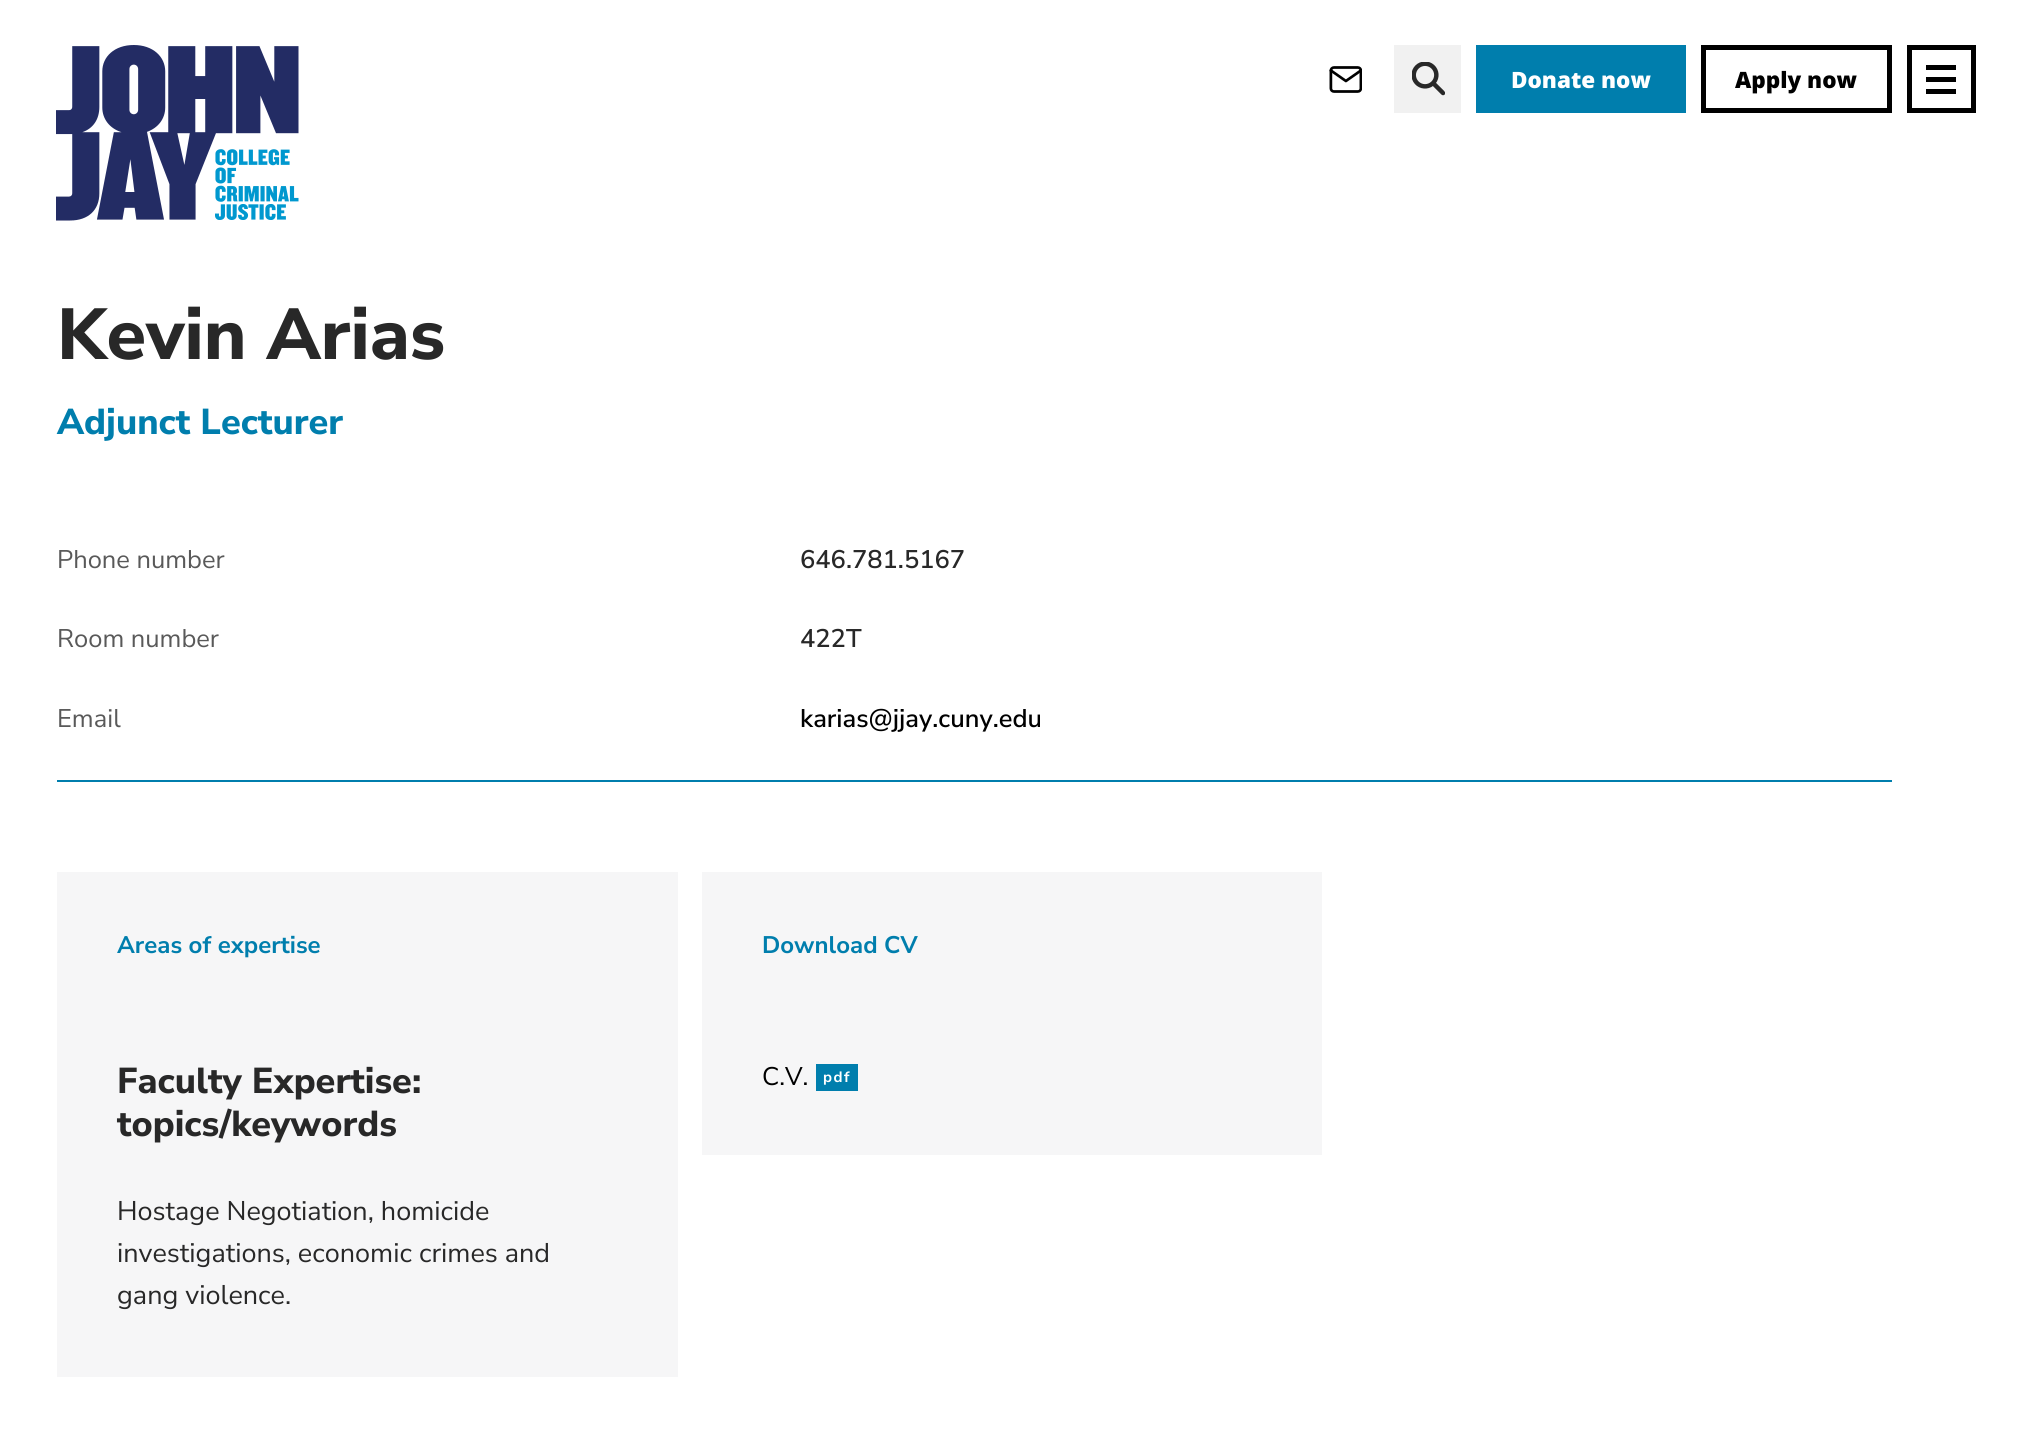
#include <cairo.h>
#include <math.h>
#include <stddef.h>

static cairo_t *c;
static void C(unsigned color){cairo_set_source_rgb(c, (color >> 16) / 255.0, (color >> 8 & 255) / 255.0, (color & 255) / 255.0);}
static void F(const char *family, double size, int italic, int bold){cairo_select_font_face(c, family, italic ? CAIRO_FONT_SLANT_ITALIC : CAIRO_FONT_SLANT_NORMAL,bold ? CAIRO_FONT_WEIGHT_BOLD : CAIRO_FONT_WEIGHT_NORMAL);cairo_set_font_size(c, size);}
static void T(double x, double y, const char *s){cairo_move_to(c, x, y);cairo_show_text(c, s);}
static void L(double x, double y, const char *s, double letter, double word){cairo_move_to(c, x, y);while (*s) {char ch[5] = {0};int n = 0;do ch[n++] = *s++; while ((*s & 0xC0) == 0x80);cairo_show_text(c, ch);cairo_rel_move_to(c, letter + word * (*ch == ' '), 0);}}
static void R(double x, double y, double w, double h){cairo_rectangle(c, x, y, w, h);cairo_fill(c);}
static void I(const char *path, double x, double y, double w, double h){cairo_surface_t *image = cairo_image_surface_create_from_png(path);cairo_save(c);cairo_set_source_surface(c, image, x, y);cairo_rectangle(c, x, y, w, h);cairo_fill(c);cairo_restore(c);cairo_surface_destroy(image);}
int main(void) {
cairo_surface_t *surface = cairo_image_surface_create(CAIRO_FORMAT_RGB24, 2031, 1448);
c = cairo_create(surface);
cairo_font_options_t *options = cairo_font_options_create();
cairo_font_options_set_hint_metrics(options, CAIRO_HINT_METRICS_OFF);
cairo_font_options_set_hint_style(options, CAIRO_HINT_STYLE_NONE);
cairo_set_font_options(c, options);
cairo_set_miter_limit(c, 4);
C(0xffffff);
cairo_paint(c);
I("1.png",56,45,243,176);
I("2.png",1329,66,33,27);
C(0xf1f1f1);
R(1394,45,67,68);
I("3.png",1412,62,33,34);
C(0x007ead);
R(1476,45,210,68);
F("Open Sans ExtraBold",22.5,0,0);
C(0xffffff);
T(1511,88,"Donate now");
cairo_rectangle(c,1703.5,47.5,186,63);
C(0x000000);
cairo_set_line_width(c,5);
cairo_stroke(c);
T(1735,88,"Apply now");
cairo_rectangle(c,1909.5,47.5,64,63);
cairo_stroke(c);
R(1926,65,30,5);
R(1926,77,30,5);
R(1926,89,30,5);
C(0x007ead);
R(57,780,1835,2);
F("Nunito Sans ExtraBold",72,0,0);
C(0x282828);
T(57,359,"Kevin Arias");
F("Nunito Sans ExtraBold",36,0,0);
C(0x007ead);
T(57,434,"Adjunct Lecturer");
F("Nunito Sans",25.5,0,0);
C(0x595959);
T(57,568,"Phone number");
F("Nunito Sans SemiBold",25.5,0,0);
C(0x282828);
T(800,568,"646.781.5167");
F("Nunito Sans",25.5,0,0);
C(0x595959);
T(57,647,"Room number");
F("Nunito Sans SemiBold",25.5,0,0);
C(0x282828);
T(800,647,"422T");
F("Nunito Sans",25.5,0,0);
C(0x595959);
T(57,727,"Email");
F("Nunito Sans SemiBold",25.5,0,0);
C(0x000000);
T(800,727,"karias@jjay.cuny.edu");
C(0xf6f6f7);
R(57,872,621,505);
F("Nunito Sans",24,0,1);
C(0x007ead);
T(117,953,"Areas of expertise");
F("Nunito Sans ExtraBold",36,0,0);
C(0x282828);
T(117,1093,"Faculty Expertise:");
T(117,1136,"topics/keywords");
F("Nunito Sans",27,0,0);
T(117,1220,"Hostage Negotiation, homicide");
T(117,1262,"investigations, economic crimes and");
T(117,1304,"gang violence.");
C(0xf6f6f7);
R(702,872,620,283);
F("Nunito Sans",24,0,1);
C(0x007ead);
T(762,953,"Download CV");
F("Nunito Sans",25.5,0,0);
C(0x000000);
T(762,1085,"C.V.");
C(0x007ead);
R(816,1064,42,27);
F("Nunito Sans",15,0,1);
C(0xffffff);
L(823,1082,"pdf",1.5,0);
cairo_surface_write_to_png(surface, "o.png");
cairo_font_options_destroy(options);
cairo_destroy(c);
cairo_surface_destroy(surface);
return 0;
}
